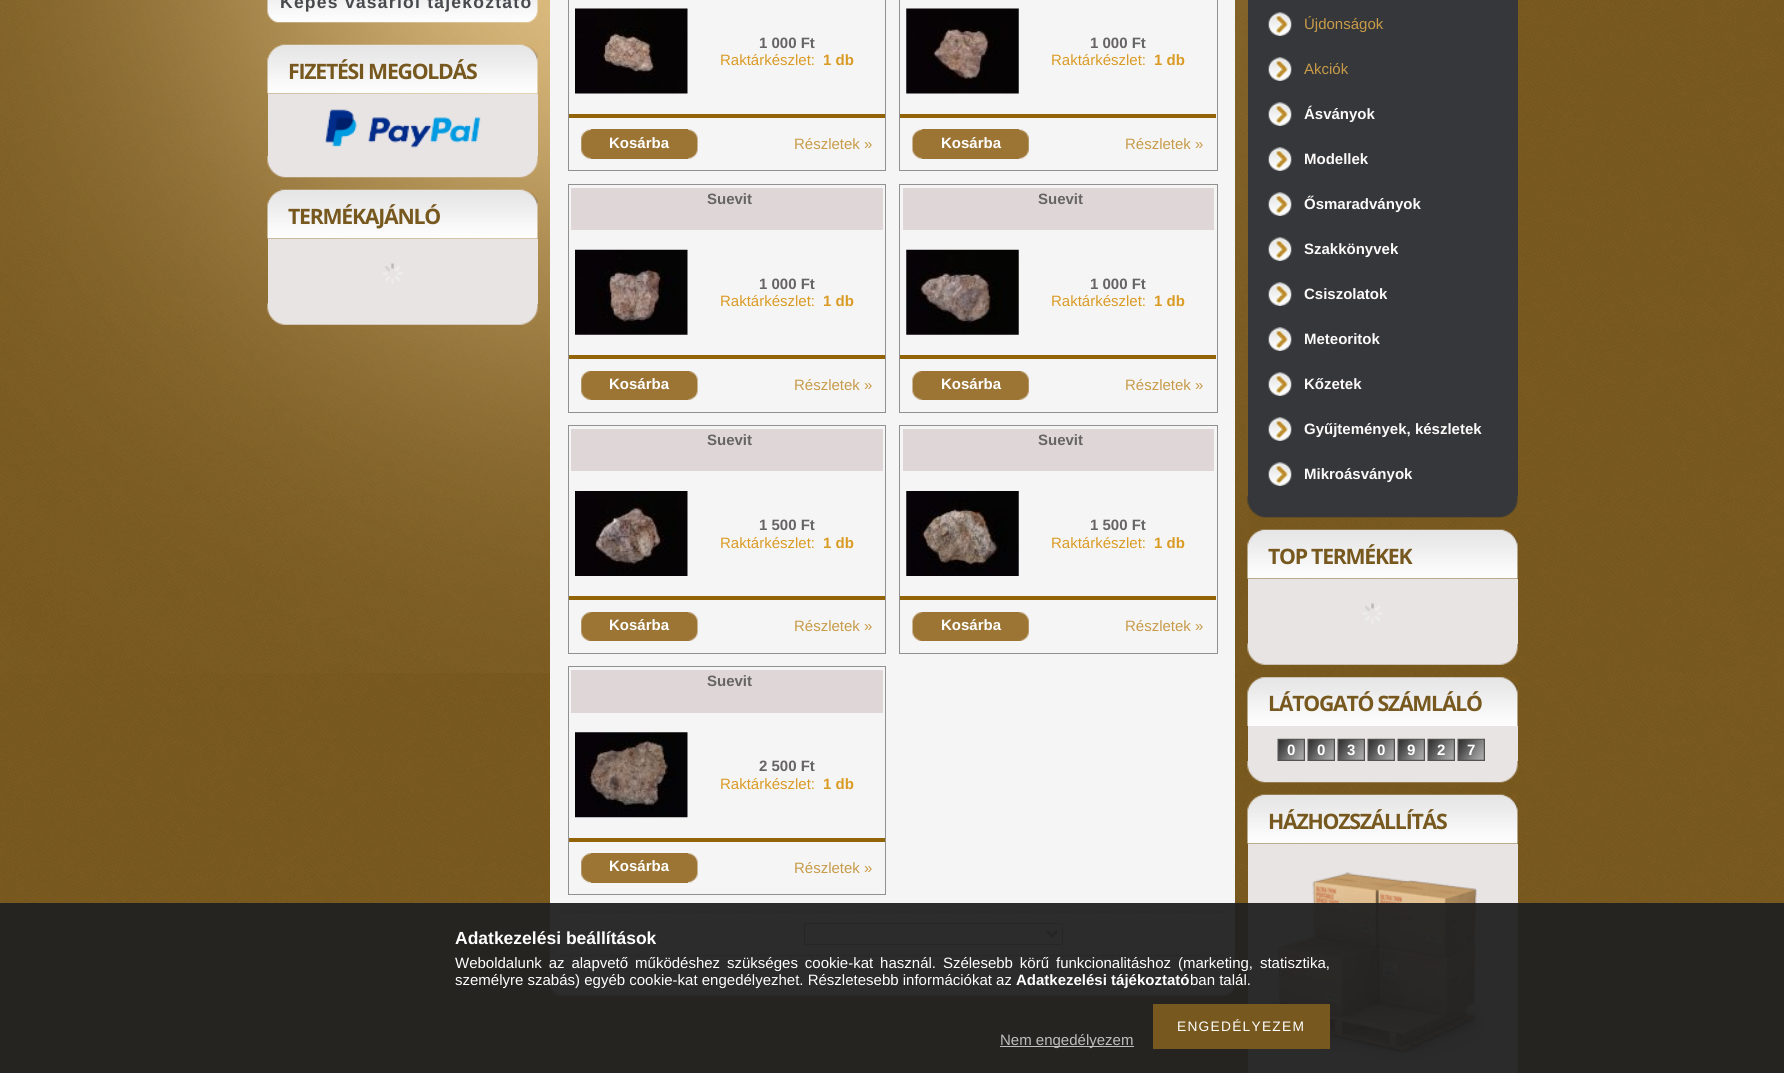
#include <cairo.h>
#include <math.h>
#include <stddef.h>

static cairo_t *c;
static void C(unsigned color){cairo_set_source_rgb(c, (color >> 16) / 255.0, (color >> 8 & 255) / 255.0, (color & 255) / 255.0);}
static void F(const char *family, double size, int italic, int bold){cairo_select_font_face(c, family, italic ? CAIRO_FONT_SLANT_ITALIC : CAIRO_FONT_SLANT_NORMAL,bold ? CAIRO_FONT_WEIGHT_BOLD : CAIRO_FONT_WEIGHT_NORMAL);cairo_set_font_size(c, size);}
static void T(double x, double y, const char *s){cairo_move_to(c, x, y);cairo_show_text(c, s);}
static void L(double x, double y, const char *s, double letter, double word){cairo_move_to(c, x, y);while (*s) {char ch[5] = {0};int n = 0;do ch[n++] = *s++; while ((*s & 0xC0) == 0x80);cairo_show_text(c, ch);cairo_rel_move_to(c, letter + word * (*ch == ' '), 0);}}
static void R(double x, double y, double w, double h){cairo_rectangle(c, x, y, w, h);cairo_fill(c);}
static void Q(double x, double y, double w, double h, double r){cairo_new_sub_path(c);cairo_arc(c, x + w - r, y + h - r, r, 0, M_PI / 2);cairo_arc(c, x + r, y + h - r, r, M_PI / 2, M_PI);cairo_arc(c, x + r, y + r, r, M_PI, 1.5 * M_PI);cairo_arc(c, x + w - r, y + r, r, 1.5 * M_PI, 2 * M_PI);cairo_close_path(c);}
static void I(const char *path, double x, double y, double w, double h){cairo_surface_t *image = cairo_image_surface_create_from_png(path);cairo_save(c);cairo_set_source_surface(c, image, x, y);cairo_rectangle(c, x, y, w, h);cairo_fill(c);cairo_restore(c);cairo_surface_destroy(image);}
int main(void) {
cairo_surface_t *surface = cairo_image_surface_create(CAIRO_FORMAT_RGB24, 1784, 1073);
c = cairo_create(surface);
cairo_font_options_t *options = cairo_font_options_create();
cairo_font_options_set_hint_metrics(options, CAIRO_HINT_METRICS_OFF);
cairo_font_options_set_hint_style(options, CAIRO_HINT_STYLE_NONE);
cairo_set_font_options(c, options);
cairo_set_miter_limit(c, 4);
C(0xffffff);
cairo_paint(c);
I("1.png",0,0,1784,1073);
I("2.png",0,0,1248,673);
I("3.png",267,0,271,23);
F("Liberation Sans",17.5,0,1);
C(0x48494d);
L(280,8,"Képes vásárlói tájékoztató",1.25,0);
I("4.png",267,44,271,50);
F("Open Sans",21.25,0,1);
C(0x77581e);
L(288,79,"FIZETÉSI MEGOLDÁS",-1.25,0);
C(0xe9e4e4);
R(268,94,270,62);
I("5.png",325,109,156,39);
I("6.png",267,156,271,22);
I("7.png",267,189,271,50);
C(0x77581e);
L(288,224,"TERMÉKAJÁNLÓ",-1.25,0);
I("9.png",267,303,271,22);
C(0xe9e4e4);
R(268,239,270,65);
I("8.png",382,263,21,21);
C(0xf6f5f5);
R(550,0,685,978);
cairo_rectangle(c,568.5,-.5,317,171);
C(0x919191);
cairo_set_line_width(c,1);
cairo_stroke(c);
I("10.png",575,8,113,86);
F("Liberation Sans",15,0,1);
C(0x666464);
T(759,48,"1 000 Ft");
F("Liberation Sans",15,0,0);
C(0xda9b25);
T(720,65,"Raktárkészlet:");
F("Liberation Sans",15,0,1);
T(823,65,"1 db");
C(0x936308);
R(569,114,316,4);
I("11.png",581,129,10,30);
C(0x9c7534);
R(591,129,97,30);
C(0xffffff);
T(609,148,"Kosárba");
I("12.png",688,129,10,30);
F("Liberation Sans",15,0,0);
C(0xc79b49);
T(794,149,"Részletek »");
cairo_rectangle(c,899.5,-.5,318,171);
C(0x919191);
cairo_stroke(c);
I("13.png",906,8,113,86);
F("Liberation Sans",15,0,1);
C(0x666464);
T(1090,48,"1 000 Ft");
F("Liberation Sans",15,0,0);
C(0xda9b25);
T(1051,65,"Raktárkészlet:");
F("Liberation Sans",15,0,1);
T(1154,65,"1 db");
C(0x936308);
R(900,114,316,4);
I("14.png",912,129,10,30);
C(0x9c7534);
R(922,129,97,30);
C(0xffffff);
T(941,148,"Kosárba");
I("15.png",1019,129,10,30);
F("Liberation Sans",15,0,0);
C(0xc79b49);
T(1125,149,"Részletek »");
cairo_rectangle(c,568.5,184.5,317,228);
C(0x919191);
cairo_stroke(c);
C(0xdfd7d7);
R(571,188,312,42);
F("Liberation Sans",15,0,1);
C(0x666464);
T(707,204,"Suevit");
I("16.png",575,249,113,86);
T(759,289,"1 000 Ft");
F("Liberation Sans",15,0,0);
C(0xda9b25);
T(720,306,"Raktárkészlet:");
F("Liberation Sans",15,0,1);
T(823,306,"1 db");
C(0x936308);
R(569,355,316,4);
I("17.png",581,371,10,29);
C(0x9c7534);
R(591,371,97,29);
C(0xffffff);
T(609,389,"Kosárba");
I("18.png",688,371,10,29);
F("Liberation Sans",15,0,0);
C(0xc79b49);
T(794,390,"Részletek »");
cairo_rectangle(c,899.5,184.5,318,228);
C(0x919191);
cairo_stroke(c);
C(0xdfd7d7);
R(903,188,311,42);
F("Liberation Sans",15,0,1);
C(0x666464);
T(1038,204,"Suevit");
I("19.png",906,249,113,86);
T(1090,289,"1 000 Ft");
F("Liberation Sans",15,0,0);
C(0xda9b25);
T(1051,306,"Raktárkészlet:");
F("Liberation Sans",15,0,1);
T(1154,306,"1 db");
C(0x936308);
R(900,355,316,4);
I("20.png",912,371,10,29);
C(0x9c7534);
R(922,371,97,29);
C(0xffffff);
T(941,389,"Kosárba");
I("21.png",1019,371,10,29);
F("Liberation Sans",15,0,0);
C(0xc79b49);
T(1125,390,"Részletek »");
cairo_rectangle(c,568.5,425.5,317,228);
C(0x919191);
cairo_stroke(c);
C(0xdfd7d7);
R(571,429,312,42);
F("Liberation Sans",15,0,1);
C(0x666464);
T(707,445,"Suevit");
I("22.png",575,491,113,85);
T(759,530,"1 500 Ft");
F("Liberation Sans",15,0,0);
C(0xda9b25);
T(720,548,"Raktárkészlet:");
F("Liberation Sans",15,0,1);
T(823,548,"1 db");
C(0x936308);
R(569,596,316,4);
I("23.png",581,612,10,29);
C(0x9c7534);
R(591,612,97,29);
C(0xffffff);
T(609,630,"Kosárba");
I("24.png",688,612,10,29);
F("Liberation Sans",15,0,0);
C(0xc79b49);
T(794,631,"Részletek »");
cairo_rectangle(c,899.5,425.5,318,228);
C(0x919191);
cairo_stroke(c);
C(0xdfd7d7);
R(903,429,311,42);
F("Liberation Sans",15,0,1);
C(0x666464);
T(1038,445,"Suevit");
I("25.png",906,491,113,85);
T(1090,530,"1 500 Ft");
F("Liberation Sans",15,0,0);
C(0xda9b25);
T(1051,548,"Raktárkészlet:");
F("Liberation Sans",15,0,1);
T(1154,548,"1 db");
C(0x936308);
R(900,596,316,4);
I("26.png",912,612,10,29);
C(0x9c7534);
R(922,612,97,29);
C(0xffffff);
T(941,630,"Kosárba");
I("27.png",1019,612,10,29);
F("Liberation Sans",15,0,0);
C(0xc79b49);
T(1125,631,"Részletek »");
cairo_rectangle(c,568.5,666.5,317,228);
C(0x919191);
cairo_stroke(c);
C(0xdfd7d7);
R(571,670,312,43);
F("Liberation Sans",15,0,1);
C(0x666464);
T(707,686,"Suevit");
I("28.png",575,732,113,86);
T(759,771,"2 500 Ft");
F("Liberation Sans",15,0,0);
C(0xda9b25);
T(720,789,"Raktárkészlet:");
F("Liberation Sans",15,0,1);
T(823,789,"1 db");
C(0x936308);
R(569,838,316,4);
I("29.png",581,853,10,30);
C(0x9c7534);
R(591,853,97,30);
C(0xffffff);
T(609,871,"Kosárba");
I("30.png",688,853,10,30);
F("Liberation Sans",15,0,0);
C(0xc79b49);
T(794,873,"Részletek »");
cairo_new_path(c);
cairo_move_to(c,561,912);
cairo_line_to(c,1224,912);
C(0x696969);
cairo_set_line_width(c,1.2);
cairo_set_dash(c,(double[]){1.25,1.25},2,0);
cairo_stroke(c);
C(0xffffff);
Q(804.5,923.5,258,21,2);
cairo_fill_preserve(c);
C(0x767676);
cairo_set_line_width(c,1);
cairo_set_dash(c,NULL,0,0);
cairo_stroke(c);
cairo_new_path(c);
cairo_move_to(c,1047,931);
cairo_line_to(c,1052,936);
cairo_line_to(c,1057,931);
C(0x666464);
cairo_set_line_width(c,2.5);
cairo_stroke(c);
cairo_new_path(c);
cairo_move_to(c,561,955.5);
cairo_line_to(c,1224,955.5);
C(0x696969);
cairo_set_line_width(c,1.2);
cairo_set_dash(c,(double[]){1.25,1.25},2,0);
cairo_stroke(c);
I("31.png",550,978,685,18);
C(0x36373a);
R(1248,0,270,496);
I("32.png",1268,12,24,24);
C(0xc79b49);
T(1304,29,"Újdonságok");
I("32.png",1268,57,24,24);
T(1304,74,"Akciók");
I("32.png",1268,102,24,24);
F("Liberation Sans",15,0,1);
C(0xfcf9f9);
T(1304,119,"Ásványok");
I("32.png",1268,147,24,24);
T(1304,164,"Modellek");
I("32.png",1268,192,24,24);
T(1304,209,"Ősmaradványok");
I("33.png",1268,237,24,24);
T(1304,254,"Szakkönyvek");
I("32.png",1268,282,24,24);
T(1304,299,"Csiszolatok");
I("32.png",1268,327,24,24);
T(1304,344,"Meteoritok");
I("32.png",1268,372,24,24);
T(1304,389,"Kőzetek");
I("32.png",1268,417,24,24);
T(1304,434,"Gyűjtemények, készletek");
I("32.png",1268,462,24,24);
T(1304,479,"Mikroásványok");
I("34.png",1247,496,271,22);
I("35.png",1247,529,271,50);
F("Open Sans",21.25,0,1);
C(0x77581e);
L(1268,564,"TOP TERMÉKEK",-1.25,0);
I("37.png",1247,643,271,22);
C(0xe9e4e4);
R(1248,579,270,65);
I("36.png",1362,603,21,21);
I("38.png",1247,677,271,49);
C(0x77581e);
L(1268,711,"LÁTOGATÓ SZÁMLÁLÓ",-1.25,0);
C(0xe9e4e4);
R(1248,726,270,35);
I("39.png",1277,738,28,23);
F("Liberation Sans",15,0,1);
C(0xffffff);
T(1287,755,"0");
I("39.png",1307,738,28,23);
T(1317,755,"0");
I("40.png",1337,738,28,23);
T(1347,755,"3");
I("39.png",1367,738,28,23);
T(1377,755,"0");
I("39.png",1397,738,28,23);
T(1407,755,"9");
I("39.png",1427,738,28,23);
T(1437,755,"2");
I("39.png",1457,738,28,23);
T(1467,755,"7");
I("41.png",1247,761,271,22);
I("42.png",1247,794,271,50);
F("Open Sans",21.25,0,1);
C(0x77581e);
L(1268,829,"HÁZHOZSZÁLLÍTÁS",-1.25,0);
I("43.png",1247,1072,1,1);
C(0xe9e4e4);
R(1248,844,270,229);
I("44.png",1272,872,210,187);
cairo_set_source_rgba(c,0.133,0.133,0.133,0.95);
R(0,903,1784,170);
F("Liberation Sans",17.5,0,1);
C(0xffffff);
T(455,944,"Adatkezelési beállítások");
F("Liberation Sans",15,0,0);
L(455,968,"Weboldalunk az alapvető működéshez szükséges cookie-kat használ. Szélesebb körű funkcionalitáshoz (marketing, statisztika,",0,2.75);
T(455,985,"személyre szabás) egyéb cookie-kat engedélyezhet. Részletesebb információkat az");
F("Liberation Sans",15,0,1);
T(1016,985,"Adatkezelési tájékoztató");
F("Liberation Sans",15,0,0);
T(1190,985,"ban talál.");
C(0x77581e);
R(1153,1004,177,45);
F("Liberation Sans",13.75,0,0);
C(0xffffff);
L(1177,1031,"ENGEDÉLYEZEM",1.25,0);
C(0xbebebd);
R(1000,1046,134,1);
F("Liberation Sans",15,0,0);
T(1000,1045,"Nem engedélyezem");
cairo_surface_write_to_png(surface, "o.png");
cairo_font_options_destroy(options);
cairo_destroy(c);
cairo_surface_destroy(surface);
return 0;
}
